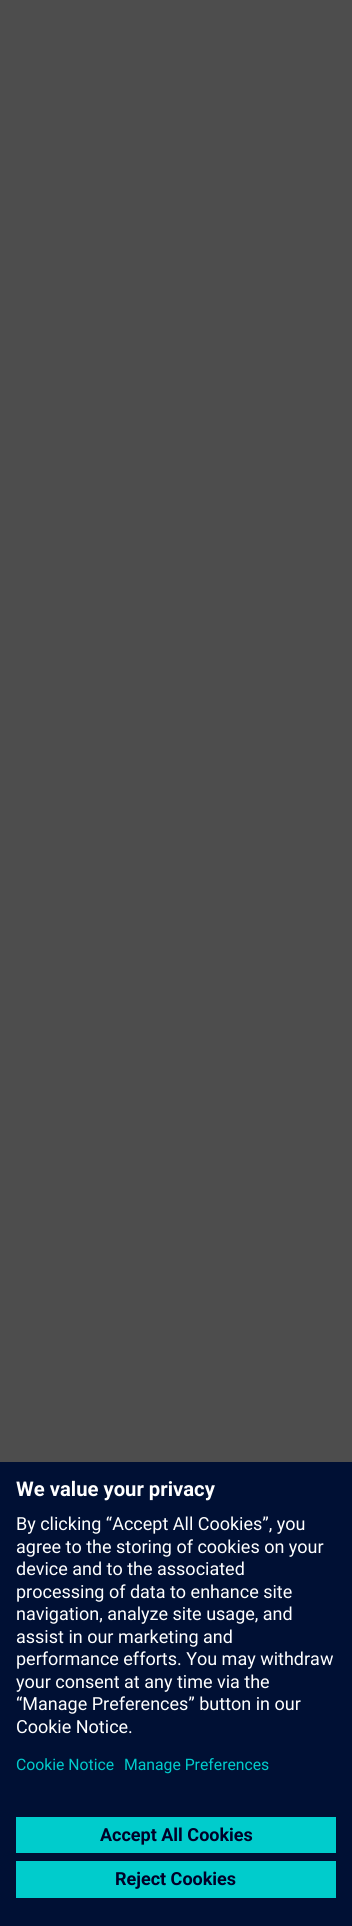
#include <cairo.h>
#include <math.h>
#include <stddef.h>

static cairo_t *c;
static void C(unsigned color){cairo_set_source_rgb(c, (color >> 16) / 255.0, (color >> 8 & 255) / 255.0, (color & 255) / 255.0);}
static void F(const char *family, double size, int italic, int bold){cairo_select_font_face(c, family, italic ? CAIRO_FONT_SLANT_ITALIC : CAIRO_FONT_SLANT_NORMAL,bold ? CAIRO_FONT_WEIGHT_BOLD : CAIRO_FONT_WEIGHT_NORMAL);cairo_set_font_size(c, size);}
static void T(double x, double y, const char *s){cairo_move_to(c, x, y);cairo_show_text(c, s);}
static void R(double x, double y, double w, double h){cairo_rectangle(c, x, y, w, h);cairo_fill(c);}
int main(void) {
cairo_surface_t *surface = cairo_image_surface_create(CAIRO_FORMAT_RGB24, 352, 1926);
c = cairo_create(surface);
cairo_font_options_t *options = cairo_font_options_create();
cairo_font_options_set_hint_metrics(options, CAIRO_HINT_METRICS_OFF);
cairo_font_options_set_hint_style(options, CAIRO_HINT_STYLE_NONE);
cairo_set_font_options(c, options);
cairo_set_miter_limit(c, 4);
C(0x4d4d4d);
cairo_paint(c);
C(0x001034);
R(0,1462,352,464);
F("Roboto",20.25,0,1);
C(0xffffff);
T(16,1496,"We value your privacy");
F("Roboto",18,0,0);
T(16,1530,"By clicking “Accept All Cookies”, you");
T(16,1553,"agree to the storing of cookies on your");
T(16,1575,"device and to the associated");
T(16,1598,"processing of data to enhance site");
T(16,1620,"navigation, analyze site usage, and");
T(16,1643,"assist in our marketing and");
T(16,1665,"performance efforts. You may withdraw");
T(16,1688,"your consent at any time via the");
T(16,1710,"“Manage Preferences” button in our");
T(16,1733,"Cookie Notice.");
F("Roboto",15.75,0,0);
C(0x00cccc);
T(16,1770,"Cookie Notice");
T(124,1770,"Manage Preferences");
R(16,1817,320,36);
F("Roboto",18,0,1);
C(0x000028);
T(100,1841,"Accept All Cookies");
C(0x00cccc);
R(16,1861,320,37);
C(0x000028);
T(115,1885,"Reject Cookies");
cairo_surface_write_to_png(surface, "o.png");
cairo_font_options_destroy(options);
cairo_destroy(c);
cairo_surface_destroy(surface);
return 0;
}
